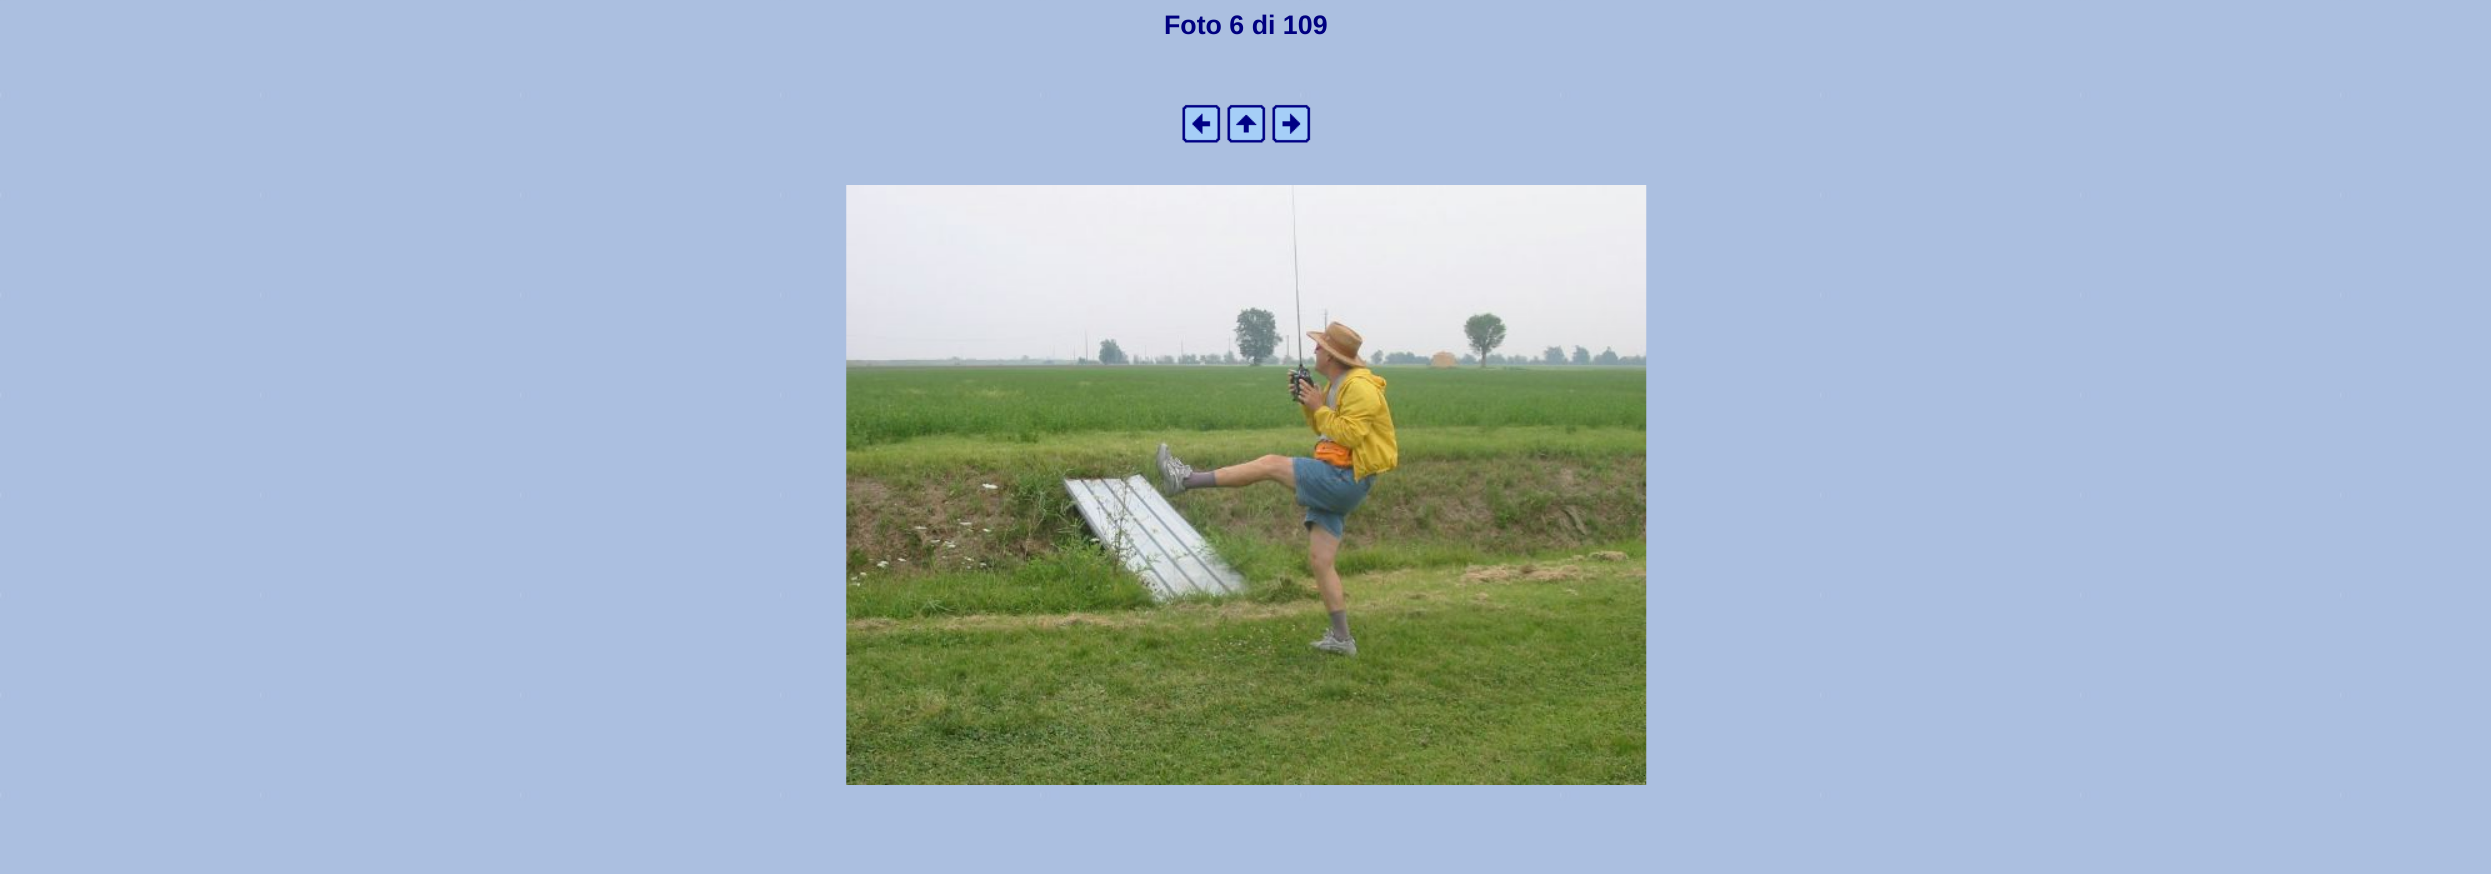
#include <cairo.h>
#include <math.h>
#include <stddef.h>

static cairo_t *c;
static void C(unsigned color){cairo_set_source_rgb(c, (color >> 16) / 255.0, (color >> 8 & 255) / 255.0, (color & 255) / 255.0);}
static void F(const char *family, double size, int italic, int bold){cairo_select_font_face(c, family, italic ? CAIRO_FONT_SLANT_ITALIC : CAIRO_FONT_SLANT_NORMAL,bold ? CAIRO_FONT_WEIGHT_BOLD : CAIRO_FONT_WEIGHT_NORMAL);cairo_set_font_size(c, size);}
static void T(double x, double y, const char *s){cairo_move_to(c, x, y);cairo_show_text(c, s);}
static void I(const char *path, double x, double y, double w, double h){cairo_surface_t *image = cairo_image_surface_create_from_png(path);cairo_save(c);cairo_set_source_surface(c, image, x, y);cairo_rectangle(c, x, y, w, h);cairo_fill(c);cairo_restore(c);cairo_surface_destroy(image);}
int main(void) {
cairo_surface_t *surface = cairo_image_surface_create(CAIRO_FORMAT_RGB24, 2491, 874);
c = cairo_create(surface);
cairo_font_options_t *options = cairo_font_options_create();
cairo_font_options_set_hint_metrics(options, CAIRO_HINT_METRICS_OFF);
cairo_font_options_set_hint_style(options, CAIRO_HINT_STYLE_NONE);
cairo_set_font_options(c, options);
cairo_set_miter_limit(c, 4);
C(0xffffff);
cairo_paint(c);
I("1.png",0,0,2491,874);
F("Liberation Sans",26.75,0,1);
C(0x000080);
T(1164,34,"Foto 6 di 109");
I("2.png",1182,104,39,39);
I("3.png",1227,104,39,39);
I("4.png",1272,104,39,39);
I("5.png",846,185,801,600);
cairo_surface_write_to_png(surface, "o.png");
cairo_font_options_destroy(options);
cairo_destroy(c);
cairo_surface_destroy(surface);
return 0;
}
